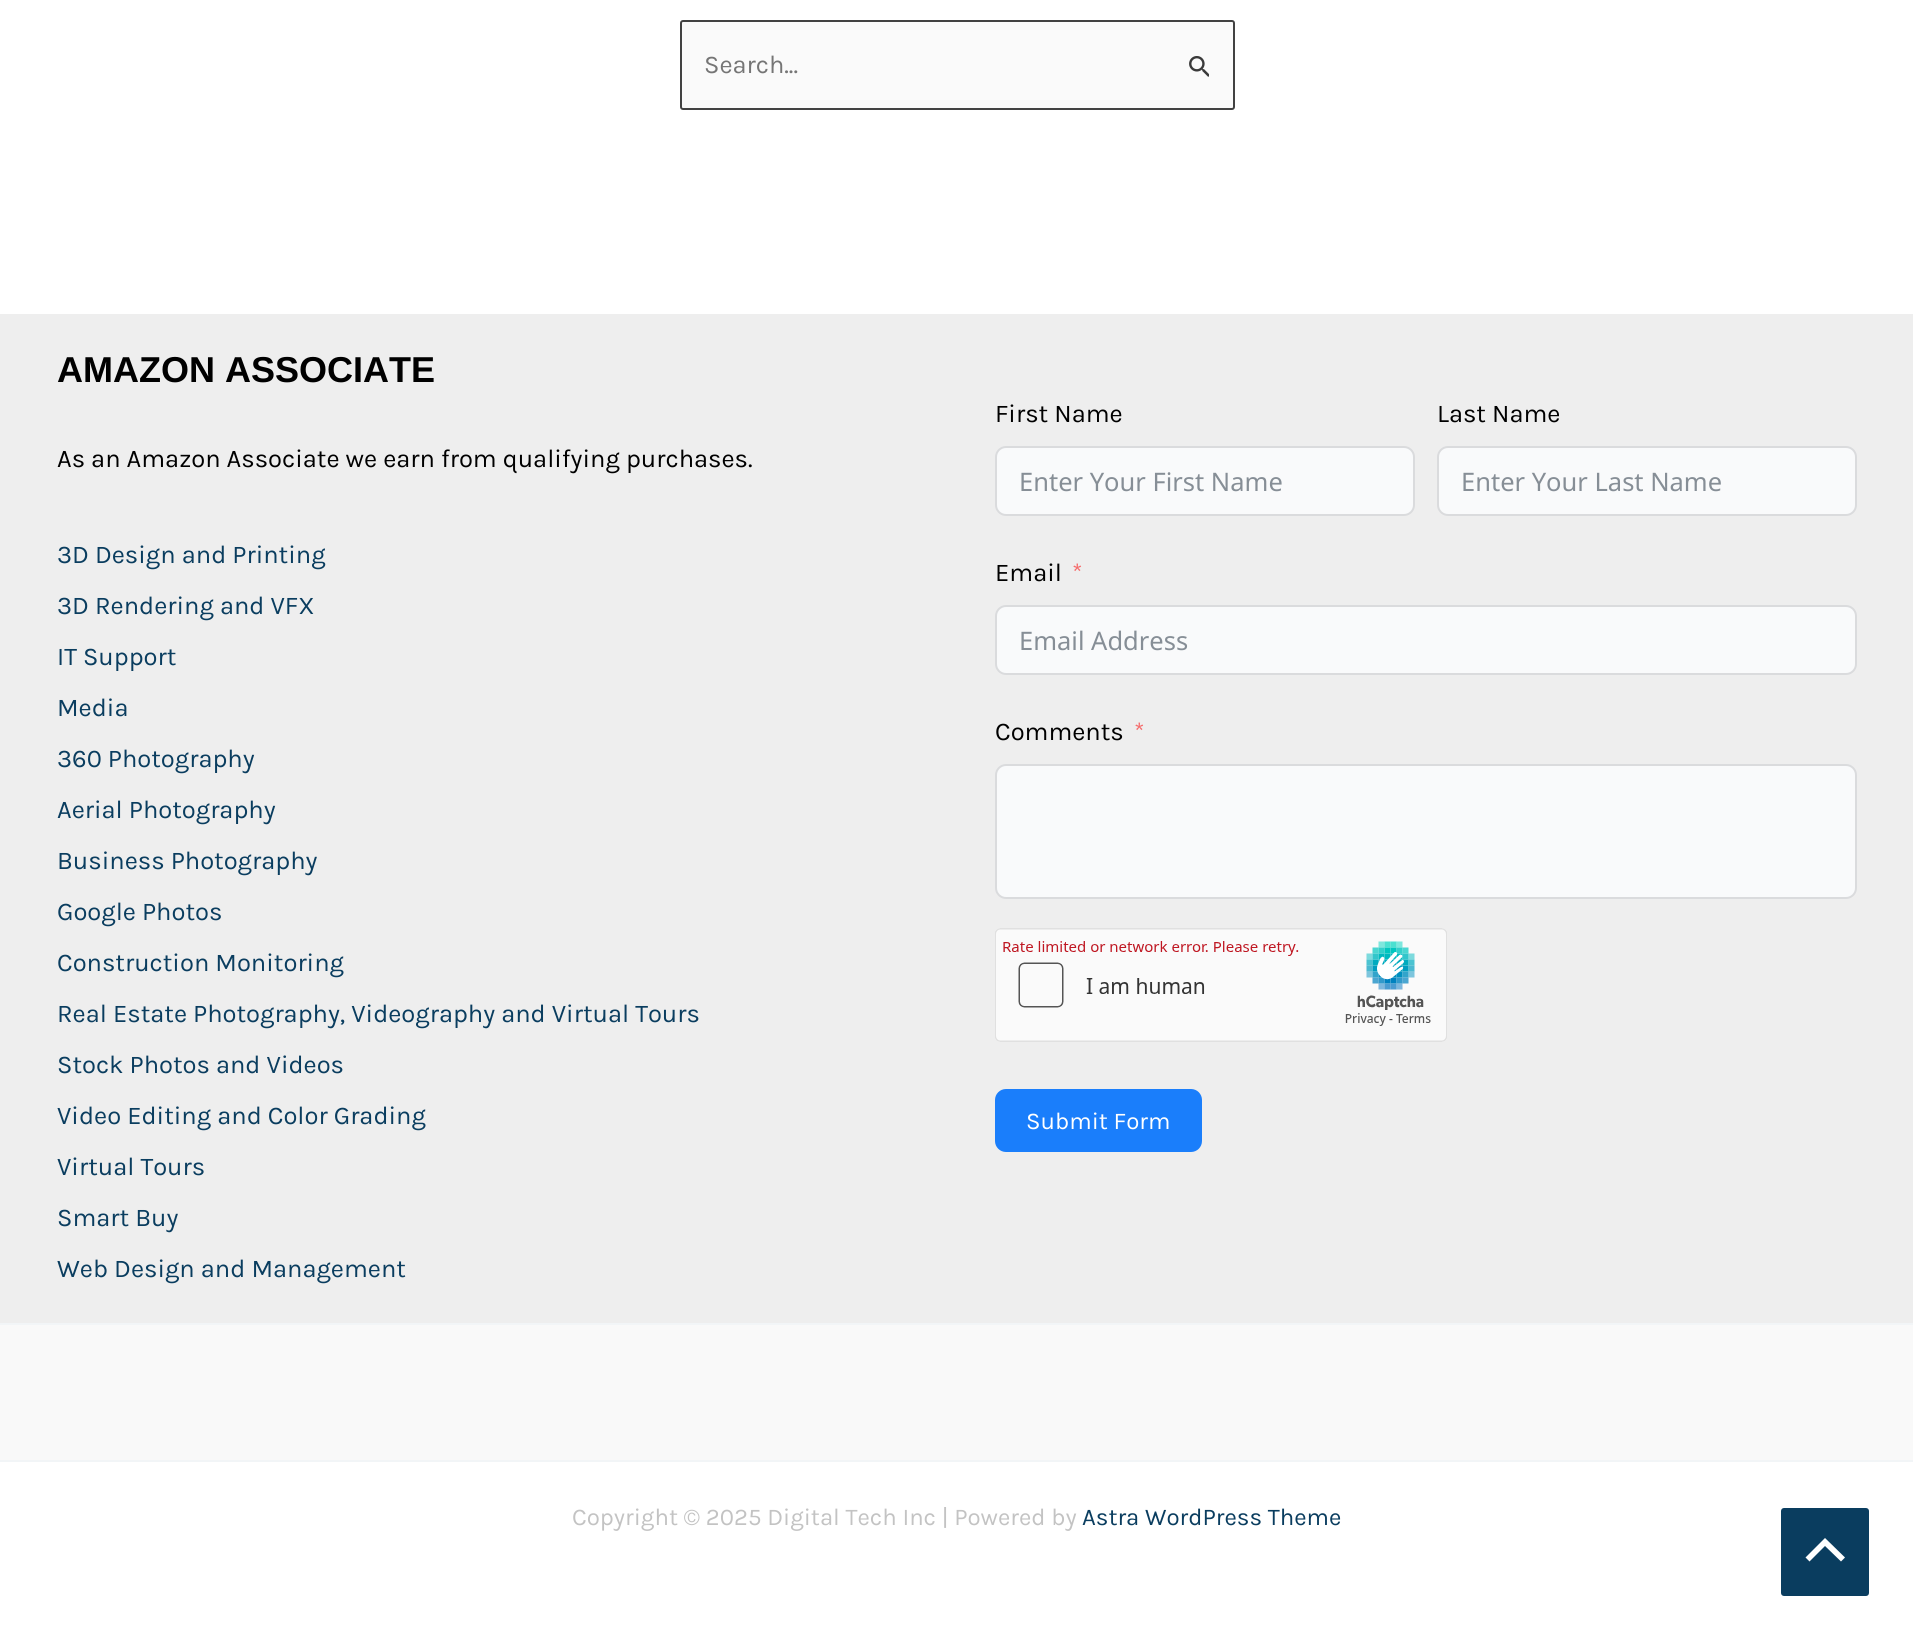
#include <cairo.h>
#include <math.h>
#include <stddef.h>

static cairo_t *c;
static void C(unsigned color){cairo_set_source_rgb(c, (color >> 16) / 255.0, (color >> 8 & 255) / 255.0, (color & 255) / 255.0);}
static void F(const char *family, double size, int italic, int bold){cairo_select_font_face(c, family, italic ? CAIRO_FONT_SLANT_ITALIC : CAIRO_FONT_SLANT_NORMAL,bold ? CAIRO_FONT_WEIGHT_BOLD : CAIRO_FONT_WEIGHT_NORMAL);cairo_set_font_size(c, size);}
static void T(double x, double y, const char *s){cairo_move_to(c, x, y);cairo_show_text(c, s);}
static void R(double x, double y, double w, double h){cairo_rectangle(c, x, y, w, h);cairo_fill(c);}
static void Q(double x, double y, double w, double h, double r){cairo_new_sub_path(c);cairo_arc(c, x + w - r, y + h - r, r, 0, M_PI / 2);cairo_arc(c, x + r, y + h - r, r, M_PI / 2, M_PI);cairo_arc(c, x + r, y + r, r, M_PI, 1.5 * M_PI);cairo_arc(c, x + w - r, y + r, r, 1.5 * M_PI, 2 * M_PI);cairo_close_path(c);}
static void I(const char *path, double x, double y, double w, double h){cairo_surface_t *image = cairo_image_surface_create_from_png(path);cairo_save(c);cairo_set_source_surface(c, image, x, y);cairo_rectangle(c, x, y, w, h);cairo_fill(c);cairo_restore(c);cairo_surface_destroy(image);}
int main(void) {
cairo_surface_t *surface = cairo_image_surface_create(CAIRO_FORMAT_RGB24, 1913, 1641);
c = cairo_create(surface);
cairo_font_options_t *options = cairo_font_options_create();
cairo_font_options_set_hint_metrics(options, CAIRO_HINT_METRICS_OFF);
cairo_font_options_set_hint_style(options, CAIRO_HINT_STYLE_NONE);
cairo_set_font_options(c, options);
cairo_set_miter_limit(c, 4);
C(0xffffff);
cairo_paint(c);
C(0xfafafa);
Q(681,21,553,88,2);
cairo_fill_preserve(c);
C(0x424242);
cairo_stroke(c);
F("Karla",25.5,0,0);
C(0x757575);
T(704,73,"Search...");
I("1.png",1189,56,20,21);
C(0xeeeeee);
R(0,314,1913,1009);
F("Liberation Sans",36,0,1);
C(0x000000);
T(57,382,"AMAZON ASSOCIATE");
F("Karla",25.5,0,0);
T(57,467,"As an Amazon Associate we earn from qualifying purchases.");
C(0x0a3d5f);
T(57,563,"3D Design and Printing");
T(57,614,"3D Rendering and VFX");
T(57,665,"IT Support");
T(57,716,"Media");
T(57,767,"360 Photography");
T(57,818,"Aerial Photography");
T(57,869,"Business Photography");
T(57,920,"Google Photos");
T(57,971,"Construction Monitoring");
T(57,1022,"Real Estate Photography, Videography and Virtual Tours");
T(57,1073,"Stock Photos and Videos");
T(57,1124,"Video Editing and Color Grading");
T(57,1175,"Virtual Tours");
T(57,1226,"Smart Buy");
T(57,1277,"Web Design and Management");
C(0x000000);
T(995,422,"First Name");
C(0xf9fafb);
Q(996,447,418,68,10);
cairo_fill_preserve(c);
C(0xdadbdd);
cairo_stroke(c);
F("Noto Sans",25.5,0,0);
C(0x868e96);
T(1019,491,"Enter Your First Name");
F("Karla",25.5,0,0);
C(0x000000);
T(1437,422,"Last Name");
C(0xf9fafb);
Q(1438,447,418,68,10);
cairo_fill_preserve(c);
C(0xdadbdd);
cairo_stroke(c);
F("Noto Sans",25.5,0,0);
C(0x868e96);
T(1461,491,"Enter Your Last Name");
F("Karla",25.5,0,0);
C(0x000000);
T(995,581,"Email");
C(0xf56c6c);
T(1072,581,"*");
C(0xf9fafb);
Q(996,606,860,68,10);
cairo_fill_preserve(c);
C(0xdadbdd);
cairo_stroke(c);
F("Noto Sans",25.5,0,0);
C(0x868e96);
T(1019,650,"Email Address");
F("Karla",25.5,0,0);
C(0x000000);
T(995,740,"Comments");
C(0xf56c6c);
T(1134,740,"*");
C(0xf9fafb);
Q(996,765,860,133,10);
cairo_fill_preserve(c);
C(0xdadbdd);
cairo_stroke(c);
I("2.png",995,928,452,114);
C(0x1a7efb);
Q(995,1089,207,63,11);
cairo_fill(c);
F("Karla",24,0,0);
C(0xffffff);
T(1026,1129,"Submit Form");
C(0xf9f9f9);
R(0,1325,1913,135);
C(0xf2f5f7);
R(0,1323,1913,2);
R(0,1460,1913,2);
C(0xc3c3c3);
T(572,1525,"Copyright © 2025 Digital Tech Inc | Powered by");
C(0x0a3d5f);
T(1082,1525,"Astra WordPress Theme");
Q(1781,1508,88,88,3);
cairo_fill(c);
C(0xffffff);
cairo_new_path(c);
cairo_move_to(c,1845,1557.5);
cairo_line_to(c,1825,1538);
cairo_line_to(c,1805.5,1557.5);
cairo_line_to(c,1809.5,1561.5);
cairo_line_to(c,1825,1546);
cairo_line_to(c,1841,1561.5);
cairo_close_path(c);
cairo_fill(c);
cairo_surface_write_to_png(surface, "o.png");
cairo_font_options_destroy(options);
cairo_destroy(c);
cairo_surface_destroy(surface);
return 0;
}
